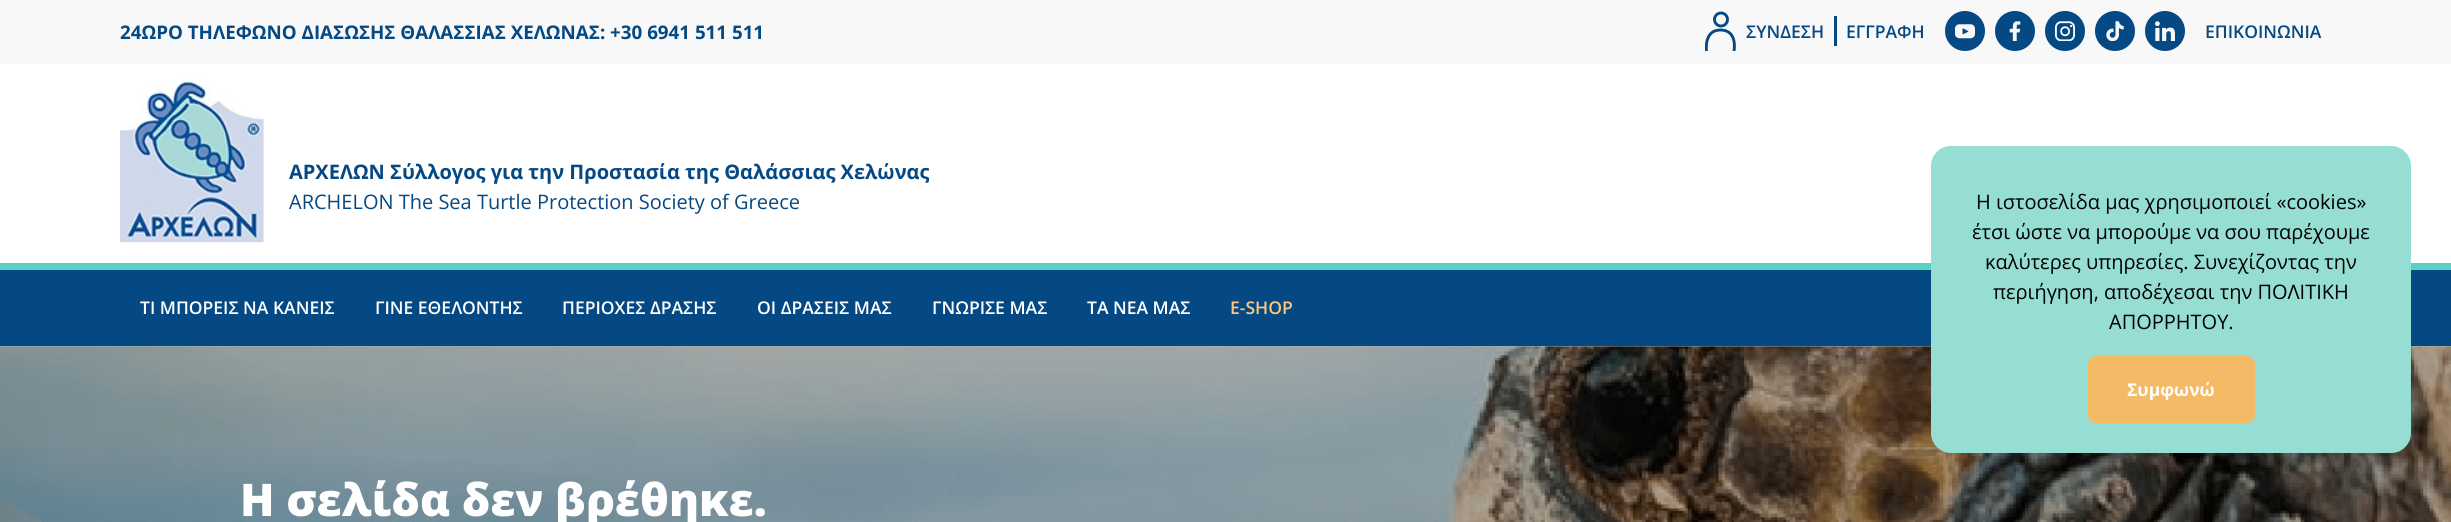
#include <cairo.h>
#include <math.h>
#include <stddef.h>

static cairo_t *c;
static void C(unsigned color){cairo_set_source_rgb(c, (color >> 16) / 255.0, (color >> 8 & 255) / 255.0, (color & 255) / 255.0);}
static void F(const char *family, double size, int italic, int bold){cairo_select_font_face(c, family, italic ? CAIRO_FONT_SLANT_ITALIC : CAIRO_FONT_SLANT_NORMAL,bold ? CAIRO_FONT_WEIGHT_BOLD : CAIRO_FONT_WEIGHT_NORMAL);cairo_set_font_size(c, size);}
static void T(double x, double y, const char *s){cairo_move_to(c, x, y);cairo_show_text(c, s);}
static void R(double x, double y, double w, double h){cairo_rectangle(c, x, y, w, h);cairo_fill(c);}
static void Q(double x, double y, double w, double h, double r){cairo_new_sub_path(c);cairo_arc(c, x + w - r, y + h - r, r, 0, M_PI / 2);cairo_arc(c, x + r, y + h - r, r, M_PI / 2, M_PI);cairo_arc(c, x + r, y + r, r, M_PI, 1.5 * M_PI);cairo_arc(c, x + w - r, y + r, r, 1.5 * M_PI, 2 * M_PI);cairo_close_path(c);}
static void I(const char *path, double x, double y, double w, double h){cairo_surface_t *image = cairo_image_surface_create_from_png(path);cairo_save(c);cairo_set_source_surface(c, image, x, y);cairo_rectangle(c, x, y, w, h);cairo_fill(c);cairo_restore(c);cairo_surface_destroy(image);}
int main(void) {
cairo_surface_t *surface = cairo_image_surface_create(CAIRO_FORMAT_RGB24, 2451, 522);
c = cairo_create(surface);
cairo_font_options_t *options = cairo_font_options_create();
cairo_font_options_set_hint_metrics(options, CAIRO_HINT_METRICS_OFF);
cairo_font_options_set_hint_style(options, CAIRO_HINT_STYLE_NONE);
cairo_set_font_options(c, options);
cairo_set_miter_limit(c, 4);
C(0xffffff);
cairo_paint(c);
C(0xb3b3b3);
R(0,346,2451,1);
C(0xf8f8f8);
R(0,0,2451,64);
F("Open Sans",18.75,0,1);
C(0x054984);
T(120,39,"24ΩΡΟ ΤΗΛΕΦΩΝΟ ΔΙΑΣΩΣΗΣ ΘΑΛΑΣΣΙΑΣ ΧΕΛΩΝΑΣ: +30 6941 511 511");
cairo_save(c);
cairo_rectangle(c,1705,11,31,40);
cairo_clip(c);
cairo_new_path(c);
cairo_move_to(c,1706.5,51);
cairo_curve_to(c,1706.5,51,1703.5,29.5,1721,30);
cairo_curve_to(c,1738,30.5,1734,51,1734,51);
cairo_set_line_width(c,2.9);
cairo_stroke(c);
cairo_restore(c);
cairo_arc(c,1721,19.5,6.5,0,2 * M_PI);
cairo_set_line_width(c,2.9);
cairo_stroke(c);
F("Open Sans SemiBold",17.5,0,0);
T(1746,38,"ΣΥΝΔΕΣΗ");
R(1834,16,3,30);
T(1846,38,"ΕΓΓΡΑΦΗ");
cairo_new_path(c);
cairo_arc(c,1965,31,20,0,2 * M_PI);
cairo_fill(c);
I("1.png",1955,24,20,15);
cairo_arc(c,2015,31,20,0,2 * M_PI);
cairo_fill(c);
I("2.png",2009,21,12,20);
cairo_arc(c,2065,31,20,0,2 * M_PI);
cairo_fill(c);
I("3.png",2055,21,20,20);
cairo_arc(c,2115,31,20,0,2 * M_PI);
cairo_fill(c);
I("4.png",2106,21,18,20);
cairo_arc(c,2165,31,20,0,2 * M_PI);
cairo_fill(c);
I("5.png",2155,21,20,20);
T(2205,38,"ΕΠΙΚΟΙΝΩΝΙΑ");
I("6.png",120,74,144,169);
F("Open Sans",20,0,1);
T(289,179,"ΑΡΧΕΛΩΝ Σύλλογος για την Προστασία της Θαλάσσιας Χελώνας");
F("Open Sans",20,0,0);
T(289,209,"ARCHELON Τhe Sea Turtle Protection Society of Greece");
R(0,270,2451,76);
C(0x5bd3c2);
R(0,263,2451,7);
F("Open Sans SemiBold",17.5,0,0);
C(0xffffff);
T(140,314,"ΤΙ ΜΠΟΡΕΙΣ ΝΑ ΚΑΝΕΙΣ");
T(375,314,"ΓΙΝΕ ΕΘΕΛΟΝΤΗΣ");
T(562,314,"ΠΕΡΙΟΧΕΣ ΔΡΑΣΗΣ");
T(757,314,"ΟΙ ΔΡΑΣΕΙΣ ΜΑΣ");
T(932,314,"ΓΝΩΡΙΣΕ ΜΑΣ");
T(1087,314,"ΤΑ ΝΕΑ ΜΑΣ");
C(0xffc87c);
T(1230,314,"E-SHOP");
I("7.png",0,346,2451,176);
F("Open Sans ExtraBold",45,0,0);
C(0xffffff);
T(240,516,"Η σελίδα δεν βρέθηκε.");
C(0x96ded4);
Q(1931,146,480,307,20);
cairo_fill(c);
F("Open Sans",20,0,0);
C(0x000000);
T(1976,209,"Η ιστοσελίδα μας χρησιμοποιεί «cookies»");
T(1972,239,"έτσι ώστε να μπορούμε να σου παρέχουμε");
T(1985,269,"καλύτερες υπηρεσίες. Συνεχίζοντας την");
T(1993,299,"περιήγηση, αποδέχεσαι την ΠΟΛΙΤΙΚΗ");
T(2109,329,"ΑΠΟΡΡΗΤΟΥ.");
C(0xf5ba66);
Q(2088,356,167,67,8);
cairo_fill(c);
F("Open Sans",17.5,0,1);
C(0xffffff);
T(2127,396,"Συμφωνώ");
cairo_surface_write_to_png(surface, "o.png");
cairo_font_options_destroy(options);
cairo_destroy(c);
cairo_surface_destroy(surface);
return 0;
}
